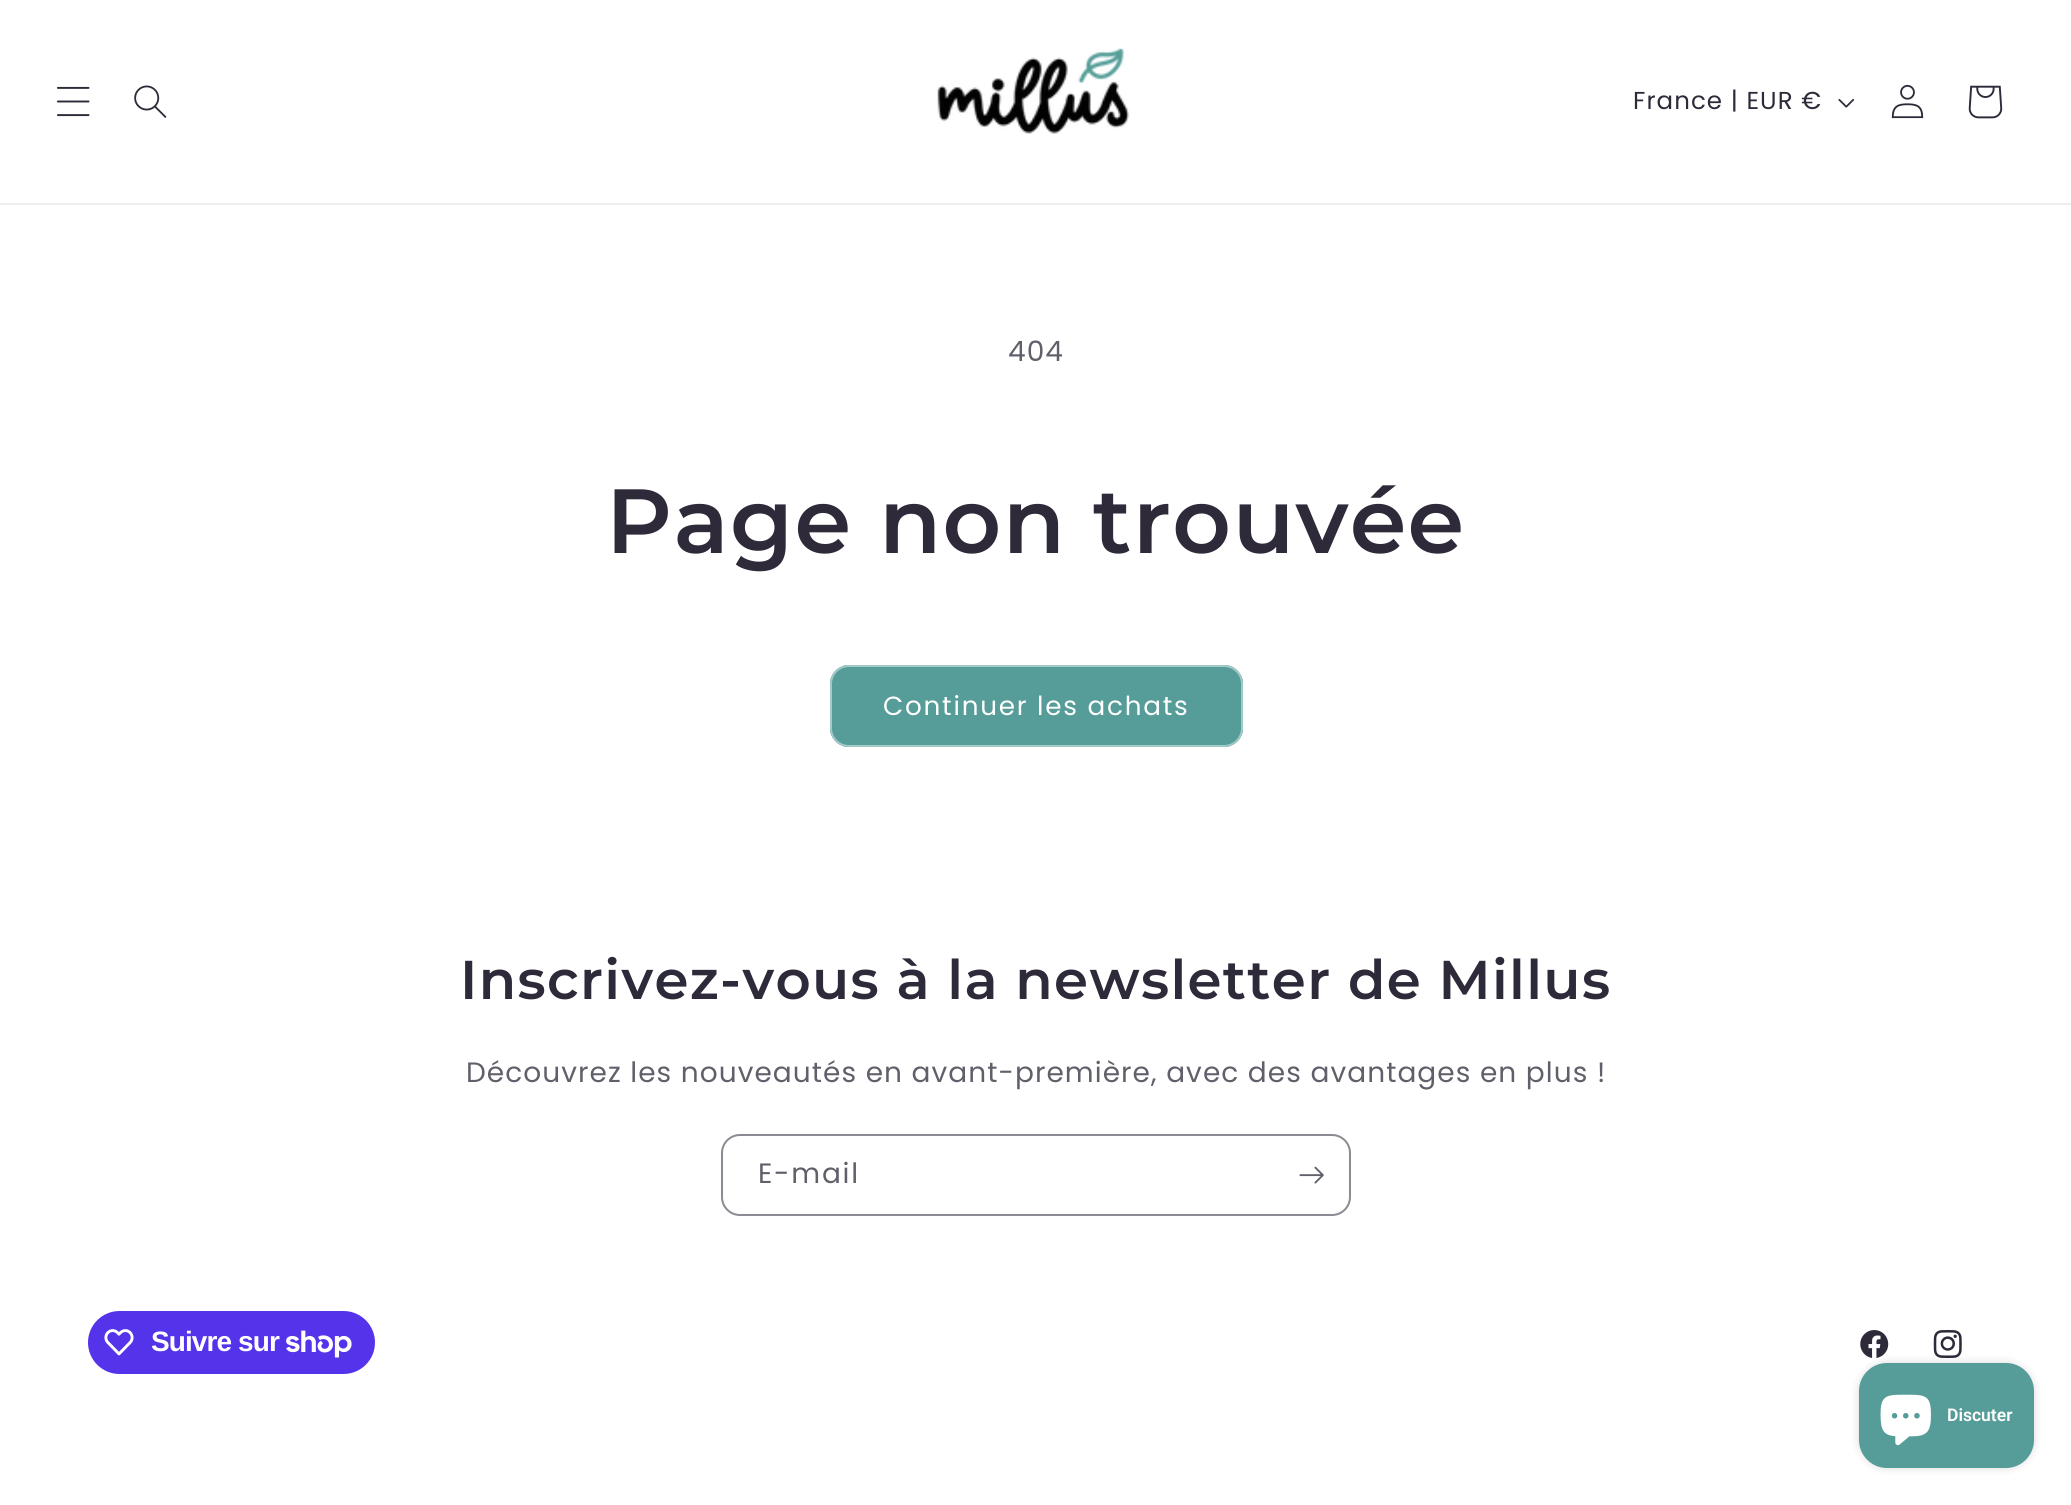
#include <cairo.h>
#include <math.h>
#include <stddef.h>

static cairo_t *c;
static void C(unsigned color){cairo_set_source_rgb(c, (color >> 16) / 255.0, (color >> 8 & 255) / 255.0, (color & 255) / 255.0);}
static void F(const char *family, double size, int italic, int bold){cairo_select_font_face(c, family, italic ? CAIRO_FONT_SLANT_ITALIC : CAIRO_FONT_SLANT_NORMAL,bold ? CAIRO_FONT_WEIGHT_BOLD : CAIRO_FONT_WEIGHT_NORMAL);cairo_set_font_size(c, size);}
static void T(double x, double y, const char *s){cairo_move_to(c, x, y);cairo_show_text(c, s);}
static void L(double x, double y, const char *s, double letter, double word){cairo_move_to(c, x, y);while (*s) {char ch[5] = {0};int n = 0;do ch[n++] = *s++; while ((*s & 0xC0) == 0x80);cairo_show_text(c, ch);cairo_rel_move_to(c, letter + word * (*ch == ' '), 0);}}
static void R(double x, double y, double w, double h){cairo_rectangle(c, x, y, w, h);cairo_fill(c);}
static void Q(double x, double y, double w, double h, double r){cairo_new_sub_path(c);cairo_arc(c, x + w - r, y + h - r, r, 0, M_PI / 2);cairo_arc(c, x + r, y + h - r, r, M_PI / 2, M_PI);cairo_arc(c, x + r, y + r, r, M_PI, 1.5 * M_PI);cairo_arc(c, x + w - r, y + r, r, 1.5 * M_PI, 2 * M_PI);cairo_close_path(c);}
static void S(double x, double y, double w, double h, double r, double blur, double alpha){cairo_push_group_with_content(c, CAIRO_CONTENT_ALPHA);cairo_set_operator(c, CAIRO_OPERATOR_SOURCE);for (int i = 15; i >= -15 && fmin(w, h) + blur * i / 3 > 0; i -= 2) {double e = blur * i / 6;cairo_set_source_rgba(c, 0, 0, 0, alpha * erfc((i - 1) / 8.5) / 2);Q(x - e, y - e, w + 2 * e, h + 2 * e, fmax(0, fmin(r + e + blur * .6, fmin(w, h) / 2 + e)));cairo_fill(c);}cairo_pattern_t *soft = cairo_pop_group(c);cairo_mask(c, soft);cairo_pattern_destroy(soft);}
static void I(const char *path, double x, double y, double w, double h){cairo_surface_t *image = cairo_image_surface_create_from_png(path);cairo_save(c);cairo_set_source_surface(c, image, x, y);cairo_rectangle(c, x, y, w, h);cairo_fill(c);cairo_restore(c);cairo_surface_destroy(image);}
int main(void) {
cairo_surface_t *surface = cairo_image_surface_create(CAIRO_FORMAT_RGB24, 2071, 1505);
c = cairo_create(surface);
cairo_font_options_t *options = cairo_font_options_create();
cairo_font_options_set_hint_metrics(options, CAIRO_HINT_METRICS_OFF);
cairo_font_options_set_hint_style(options, CAIRO_HINT_STYLE_NONE);
cairo_set_font_options(c, options);
cairo_set_miter_limit(c, 4);
C(0xffffff);
cairo_paint(c);
C(0xeeeeef);
R(0,203,2071,2);
I("1.png",57,86,33,31);
I("2.png",134,85,33,33);
I("3.png",937,48,193,86);
F("Poppins",24.5,0,0);
C(0x2e2a39);
L(1633,109,"France | EUR €",1.05,0);
I("4.png",1838,98,17,10);
I("5.png",1891,84,33,35);
I("6.png",1968,85,35,34);
F("Poppins",28,0,0);
C(0x625f6b);
L(1008,361,"404",1.05,0);
F("Montserrat SemiBold",91,0,0);
C(0x2e2a39);
L(606,553,"Page non trouvée",1.35,0);
C(0x569d99);
Q(830,665,413,82,19);
cairo_fill(c);
Q(831,666,411,80,18);
cairo_stroke(c);
Q(831,666,411,80,18);
cairo_set_source_rgba(c,1,1,1,0.45);
cairo_stroke(c);
F("Poppins",26.25,0,0);
C(0xffffff);
L(883,715,"Continuer les achats",1.75,0);
F("Montserrat SemiBold",54.6,0,0);
C(0x2e2a39);
L(460,999,"Inscrivez-vous à la newsletter de Millus",1.35,0);
F("Poppins",28,0,0);
C(0x625f6b);
L(466,1082,"Découvrez les nouveautés en avant-première, avec des avantages en plus !",1.05,0);
Q(722,1135,628,80,18);
C(0x8c8a92);
cairo_stroke(c);
C(0x625f6b);
L(758,1183,"E-mail",1.75,0);
I("7.png",1299,1166,25,18);
C(0x5433eb);
Q(88,1311,287,63,31.5);
cairo_fill(c);
I("8.png",104,1329,30,27);
F("Liberation Sans",28,0,1);
C(0xffffff);
L(151,1351,"Suivre sur",-.9,0);
I("9.png",286,1330,66,28);
I("10.png",1860,1330,29,28);
I("11.png",1933,1330,29,28);
C(0x000000);
S(1859,1363,175,105,28,4.5,.15);
C(0x569d99);
Q(1859,1363,175,105,28);
cairo_fill(c);
I("12.png",1880,1394,51,52);
F("Roboto SemiBold",17.5,0,0);
C(0xffffff);
T(1947,1421,"Discuter");
cairo_surface_write_to_png(surface, "o.png");
cairo_font_options_destroy(options);
cairo_destroy(c);
cairo_surface_destroy(surface);
return 0;
}
